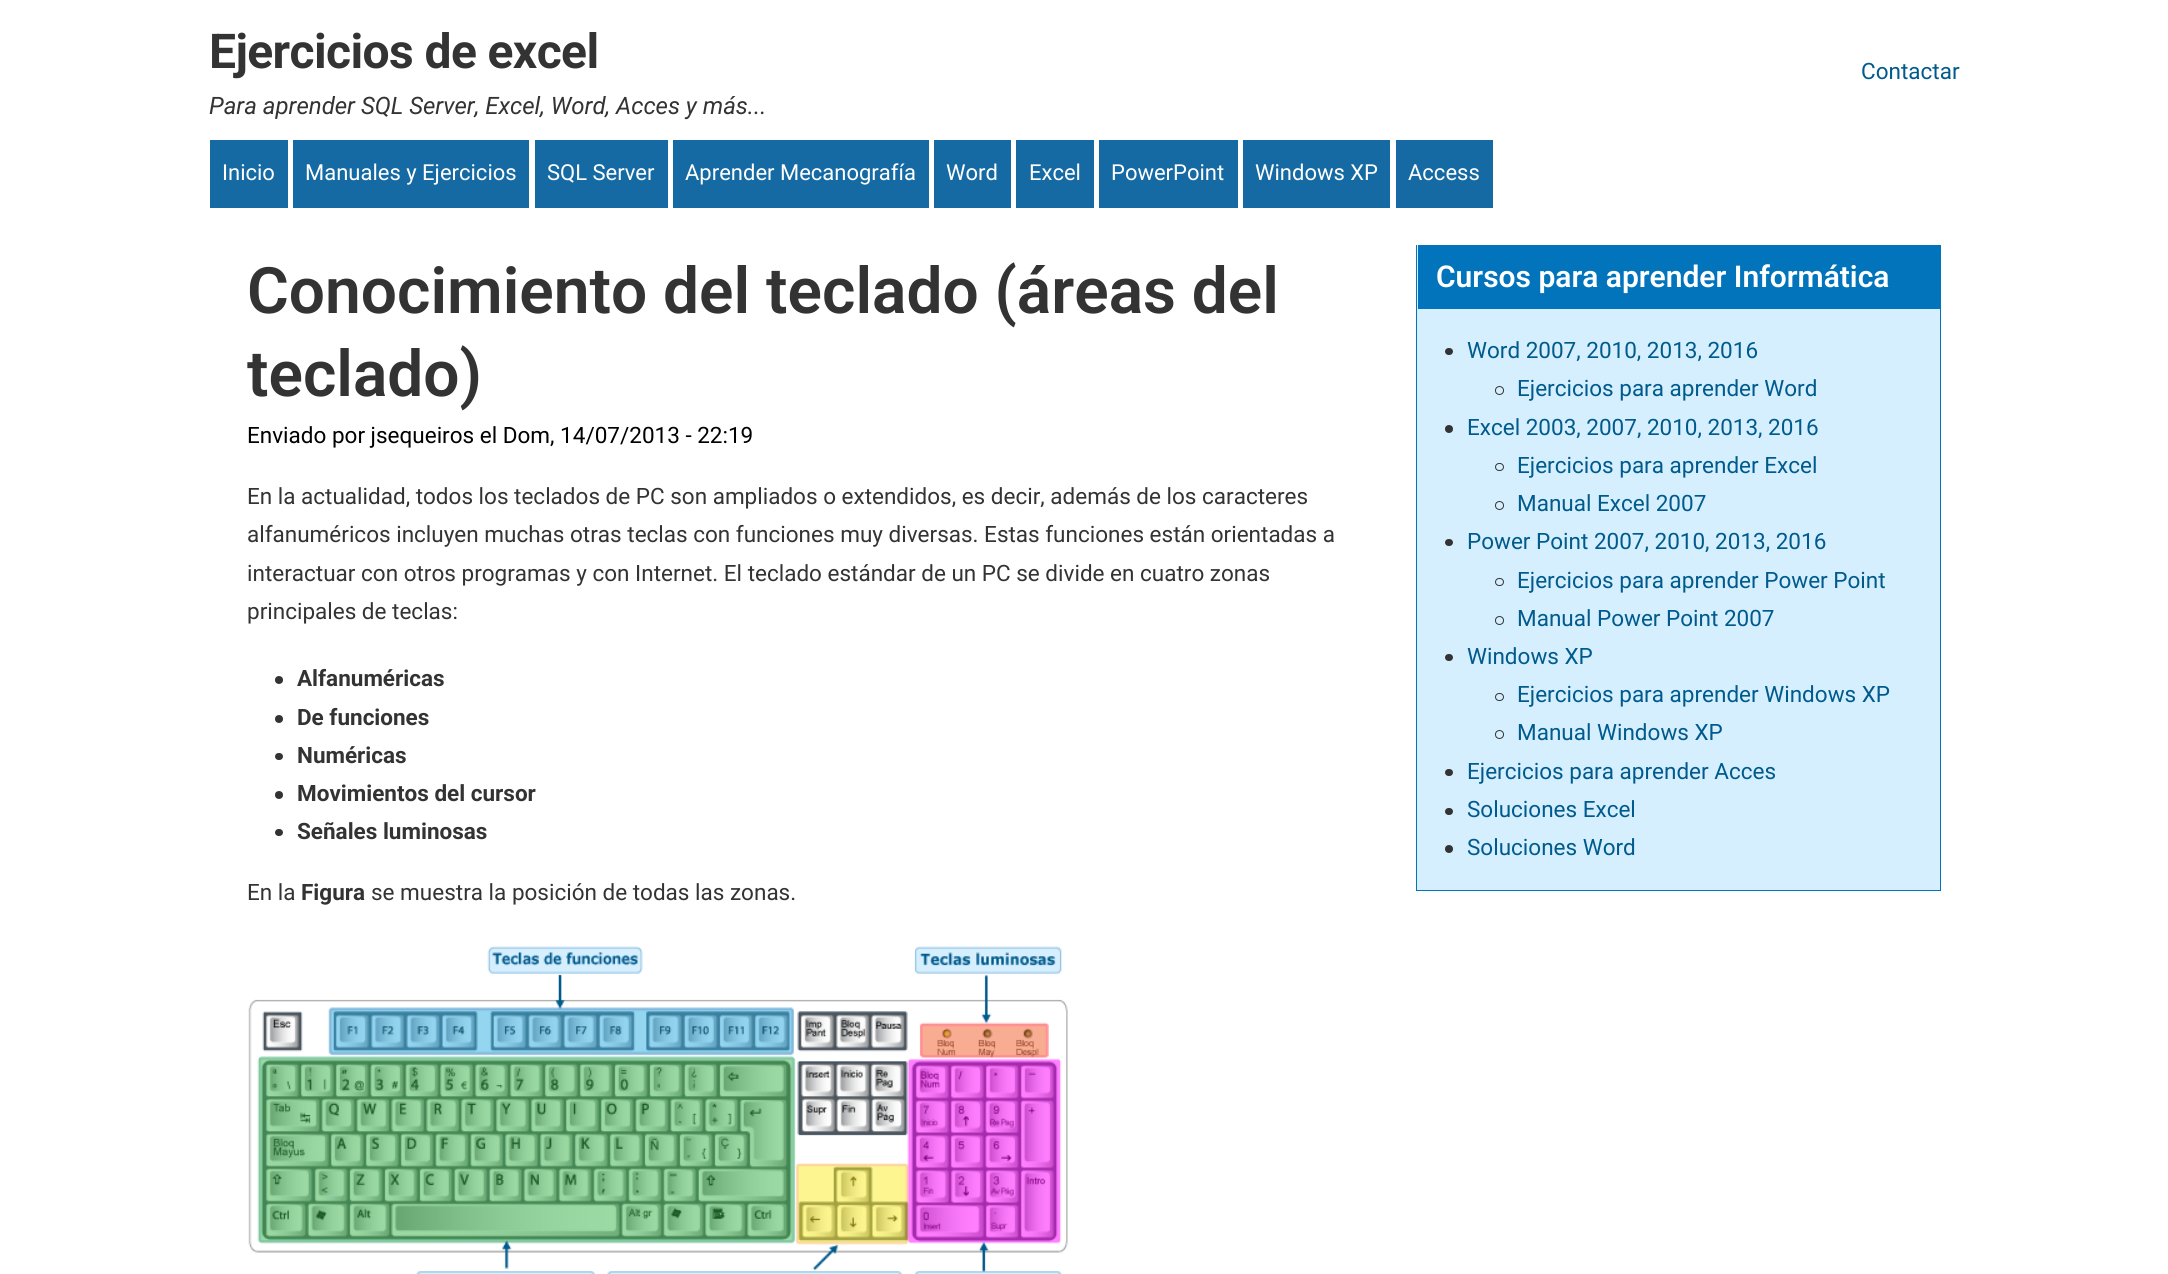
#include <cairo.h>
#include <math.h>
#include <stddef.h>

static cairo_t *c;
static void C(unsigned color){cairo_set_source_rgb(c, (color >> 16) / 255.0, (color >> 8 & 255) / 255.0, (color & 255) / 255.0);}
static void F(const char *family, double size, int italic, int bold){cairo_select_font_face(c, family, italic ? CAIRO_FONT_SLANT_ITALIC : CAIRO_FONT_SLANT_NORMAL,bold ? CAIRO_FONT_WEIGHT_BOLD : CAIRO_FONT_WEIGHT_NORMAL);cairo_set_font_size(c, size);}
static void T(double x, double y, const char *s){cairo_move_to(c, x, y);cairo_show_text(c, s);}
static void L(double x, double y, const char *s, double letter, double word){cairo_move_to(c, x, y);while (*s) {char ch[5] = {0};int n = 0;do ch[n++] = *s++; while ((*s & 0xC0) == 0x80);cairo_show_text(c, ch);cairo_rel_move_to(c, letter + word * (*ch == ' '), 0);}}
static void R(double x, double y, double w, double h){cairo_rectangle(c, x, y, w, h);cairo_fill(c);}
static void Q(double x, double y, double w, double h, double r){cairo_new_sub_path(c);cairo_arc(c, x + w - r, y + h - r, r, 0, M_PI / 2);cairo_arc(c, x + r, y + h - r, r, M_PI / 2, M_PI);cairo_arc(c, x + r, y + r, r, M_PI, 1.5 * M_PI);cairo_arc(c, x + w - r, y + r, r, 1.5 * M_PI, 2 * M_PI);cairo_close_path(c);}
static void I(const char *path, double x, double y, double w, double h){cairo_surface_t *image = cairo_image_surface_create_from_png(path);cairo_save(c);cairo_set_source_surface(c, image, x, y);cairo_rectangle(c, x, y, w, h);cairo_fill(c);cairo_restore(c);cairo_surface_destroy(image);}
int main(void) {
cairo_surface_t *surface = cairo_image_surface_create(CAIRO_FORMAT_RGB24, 2168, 1274);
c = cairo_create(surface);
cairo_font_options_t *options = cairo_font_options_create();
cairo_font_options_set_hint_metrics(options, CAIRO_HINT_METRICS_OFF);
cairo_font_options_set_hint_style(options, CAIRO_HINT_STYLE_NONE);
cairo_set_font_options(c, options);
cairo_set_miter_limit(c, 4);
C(0xffffff);
cairo_paint(c);
F("Roboto",48,0,1);
C(0x333333);
L(209,68,"Ejercicios de excel",-.6,0);
F("Roboto",24,1,0);
T(209,114,"Para aprender SQL Server, Excel, Word, Acces y más...");
F("Roboto",22.5,0,0);
C(0x005a8c);
T(1861,79,"Contactar");
C(0x156aa3);
R(210,140,78,68);
F("Roboto",22,0,0);
C(0xffffff);
T(222,180,"Inicio");
C(0x156aa3);
R(293,140,236,68);
C(0xffffff);
T(305,180,"Manuales y Ejercicios");
C(0x156aa3);
R(535,140,133,68);
C(0xffffff);
T(547,180,"SQL Server");
C(0x156aa3);
R(673,140,256,68);
C(0xffffff);
T(685,180,"Aprender Mecanografía");
C(0x156aa3);
R(934,140,77,68);
C(0xffffff);
T(946,180,"Word");
C(0x156aa3);
R(1016,140,78,68);
C(0xffffff);
T(1029,180,"Excel");
C(0x156aa3);
R(1099,140,139,68);
C(0xffffff);
T(1111,180,"PowerPoint");
C(0x156aa3);
R(1243,140,147,68);
C(0xffffff);
T(1255,180,"Windows XP");
C(0x156aa3);
R(1396,140,97,68);
C(0xffffff);
T(1408,180,"Access");
F("Roboto SemiBold",64,0,0);
C(0x333333);
T(247,313,"Conocimiento del teclado (áreas del");
T(247,396,"teclado)");
F("Roboto",22.5,0,0);
C(0x000000);
T(247,443,"Enviado por jsequeiros el Dom, 14/07/2013 - 22:19");
C(0x333333);
T(247,504,"En la actualidad, todos los teclados de PC son ampliados o extendidos, es decir, además de los caracteres");
T(247,542,"alfanuméricos incluyen muchas otras teclas con funciones muy diversas. Estas funciones están orientadas a");
T(247,581,"interactuar con otros programas y con Internet. El teclado estándar de un PC se divide en cuatro zonas");
T(247,619,"principales de teclas:");
cairo_new_path(c);
cairo_arc(c,279,680,4,0,2 * M_PI);
cairo_fill(c);
F("Roboto",22.5,0,1);
T(297,686,"Alfanuméricas");
cairo_new_path(c);
cairo_arc(c,279,719,4,0,2 * M_PI);
cairo_fill(c);
T(297,725,"De funciones");
Q(275,753,8,7,3.5);
cairo_fill(c);
T(297,763,"Numéricas");
cairo_new_path(c);
cairo_arc(c,279,795,4,0,2 * M_PI);
cairo_fill(c);
T(297,801,"Movimientos del cursor");
Q(275,829,8,7,3.5);
cairo_fill(c);
T(297,839,"Señales luminosas");
F("Roboto",22.5,0,0);
T(247,900,"En la");
F("Roboto",22.5,0,1);
T(301,900,"Figura");
F("Roboto",22.5,0,0);
T(371,900,"se muestra la posición de todas las zonas.");
I("1.png",248,946,820,328);
C(0xd5efff);
R(1417,245,523,645);
C(0x0174bb);
R(1940,245,1,646);
R(1416,890,525,1);
R(1416,245,1,646);
R(1418,245,522,64);
F("Roboto SemiBold",30,0,0);
C(0xffffff);
T(1436,287,"Cursos para aprender Informática");
C(0x333333);
Q(1445,348,8,7,3.5);
cairo_fill(c);
F("Roboto",22.5,0,0);
C(0x005a8c);
T(1467,358,"Word 2007, 2010, 2013, 2016");
cairo_new_path(c);
cairo_arc(c,1499.5,390.5,4,0,2 * M_PI);
C(0x333333);
cairo_set_line_width(c,1);
cairo_stroke(c);
C(0x005a8c);
T(1517,396,"Ejercicios para aprender Word");
C(0x333333);
cairo_new_path(c);
cairo_arc(c,1449,429,4,0,2 * M_PI);
cairo_fill(c);
C(0x005a8c);
T(1467,435,"Excel 2003, 2007, 2010, 2013, 2016");
Q(1495.5,463.5,8,7,3.5);
C(0x333333);
cairo_stroke(c);
C(0x005a8c);
T(1517,473,"Ejercicios para aprender Excel");
cairo_new_path(c);
cairo_arc(c,1499.5,505.5,4,0,2 * M_PI);
C(0x333333);
cairo_stroke(c);
C(0x005a8c);
T(1517,511,"Manual Excel 2007");
C(0x333333);
Q(1445,539,8,7,3.5);
cairo_fill(c);
C(0x005a8c);
T(1467,549,"Power Point 2007, 2010, 2013, 2016");
Q(1495.5,578.5,8,7,3.5);
C(0x333333);
cairo_stroke(c);
C(0x005a8c);
T(1517,588,"Ejercicios para aprender Power Point");
cairo_new_path(c);
cairo_arc(c,1499.5,620.5,4,0,2 * M_PI);
C(0x333333);
cairo_stroke(c);
C(0x005a8c);
T(1517,626,"Manual Power Point 2007");
C(0x333333);
Q(1445,654,8,7,3.5);
cairo_fill(c);
C(0x005a8c);
T(1467,664,"Windows XP");
Q(1495.5,693.5,8,7,3.5);
C(0x333333);
cairo_stroke(c);
C(0x005a8c);
T(1517,702,"Ejercicios para aprender Windows XP");
cairo_new_path(c);
cairo_arc(c,1499.5,734.5,4,0,2 * M_PI);
C(0x333333);
cairo_stroke(c);
C(0x005a8c);
T(1517,740,"Manual Windows XP");
C(0x333333);
Q(1445,769,8,7,3.5);
cairo_fill(c);
C(0x005a8c);
T(1467,779,"Ejercicios para aprender Acces");
C(0x333333);
Q(1445,808,8,7,3.5);
cairo_fill(c);
C(0x005a8c);
T(1467,817,"Soluciones Excel");
C(0x333333);
cairo_new_path(c);
cairo_arc(c,1449,849,4,0,2 * M_PI);
cairo_fill(c);
C(0x005a8c);
T(1467,855,"Soluciones Word");
cairo_surface_write_to_png(surface, "o.png");
cairo_font_options_destroy(options);
cairo_destroy(c);
cairo_surface_destroy(surface);
return 0;
}
